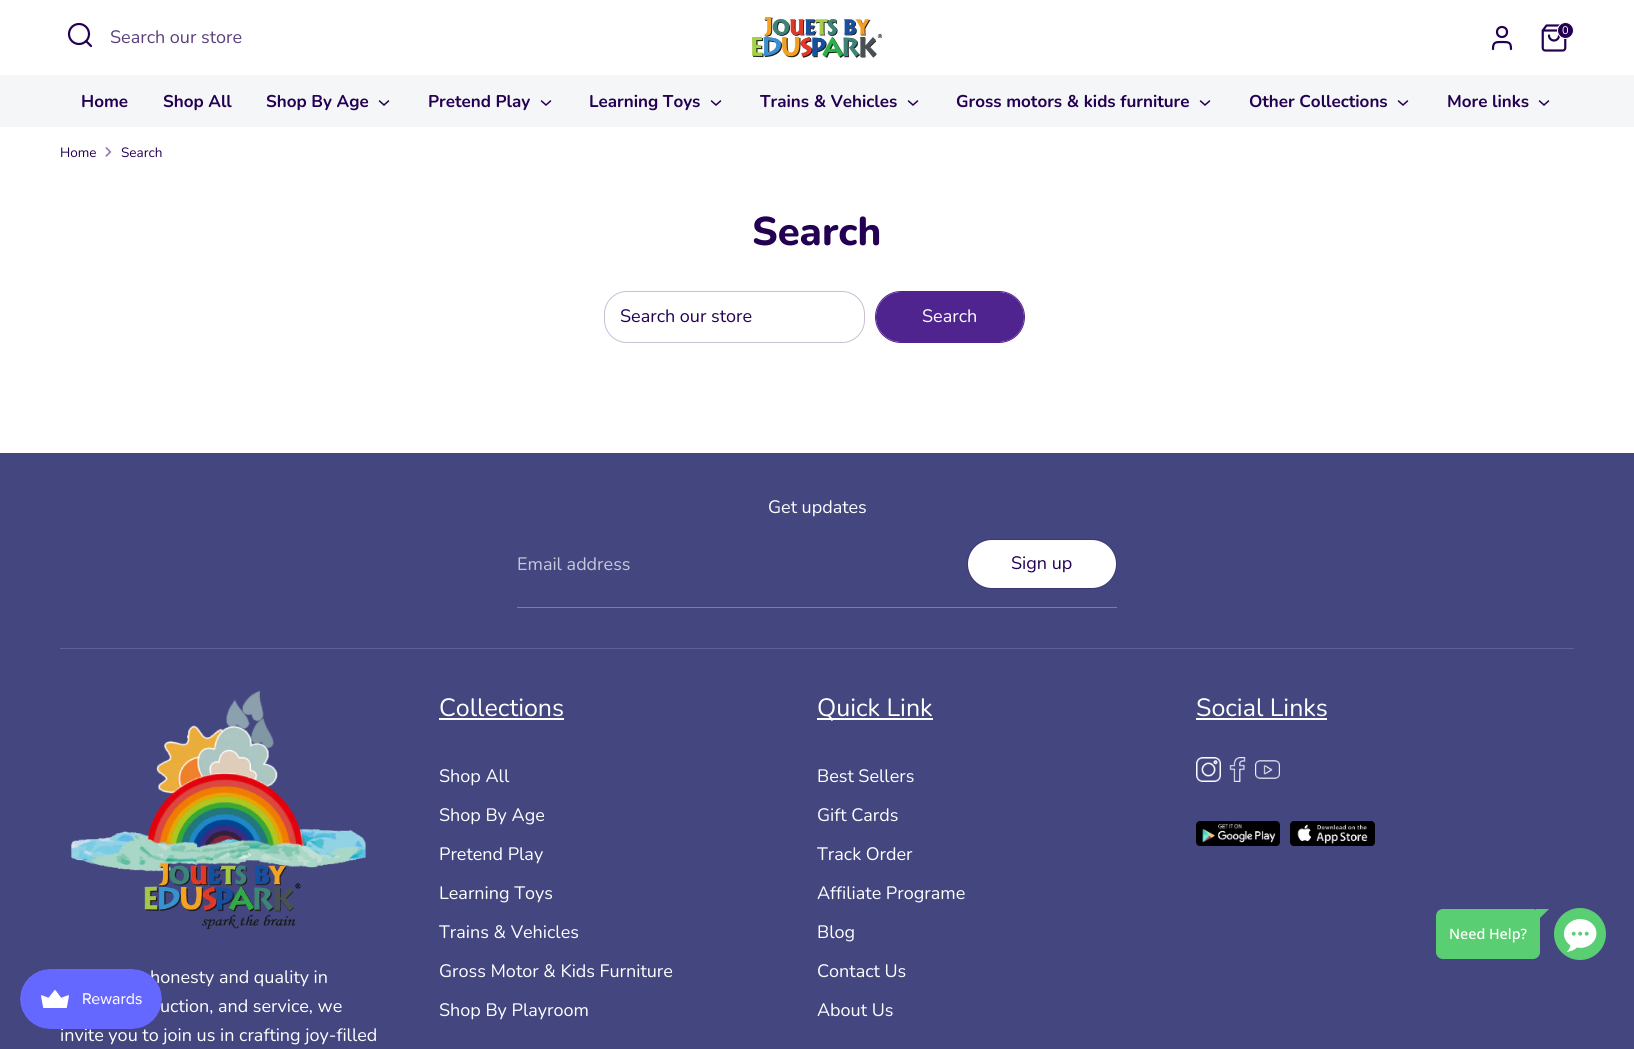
#include <cairo.h>
#include <math.h>
#include <stddef.h>

static cairo_t *c;
static void C(unsigned color){cairo_set_source_rgb(c, (color >> 16) / 255.0, (color >> 8 & 255) / 255.0, (color & 255) / 255.0);}
static void F(const char *family, double size, int italic, int bold){cairo_select_font_face(c, family, italic ? CAIRO_FONT_SLANT_ITALIC : CAIRO_FONT_SLANT_NORMAL,bold ? CAIRO_FONT_WEIGHT_BOLD : CAIRO_FONT_WEIGHT_NORMAL);cairo_set_font_size(c, size);}
static void T(double x, double y, const char *s){cairo_move_to(c, x, y);cairo_show_text(c, s);}
static void R(double x, double y, double w, double h){cairo_rectangle(c, x, y, w, h);cairo_fill(c);}
static void Q(double x, double y, double w, double h, double r){cairo_new_sub_path(c);cairo_arc(c, x + w - r, y + h - r, r, 0, M_PI / 2);cairo_arc(c, x + r, y + h - r, r, M_PI / 2, M_PI);cairo_arc(c, x + r, y + r, r, M_PI, 1.5 * M_PI);cairo_arc(c, x + w - r, y + r, r, 1.5 * M_PI, 2 * M_PI);cairo_close_path(c);}
static void I(const char *path, double x, double y, double w, double h){cairo_surface_t *image = cairo_image_surface_create_from_png(path);cairo_save(c);cairo_set_source_surface(c, image, x, y);cairo_rectangle(c, x, y, w, h);cairo_fill(c);cairo_restore(c);cairo_surface_destroy(image);}
int main(void) {
cairo_surface_t *surface = cairo_image_surface_create(CAIRO_FORMAT_RGB24, 1634, 1049);
c = cairo_create(surface);
cairo_font_options_t *options = cairo_font_options_create();
cairo_font_options_set_hint_metrics(options, CAIRO_HINT_METRICS_OFF);
cairo_font_options_set_hint_style(options, CAIRO_HINT_STYLE_NONE);
cairo_set_font_options(c, options);
cairo_set_miter_limit(c, 4);
C(0xffffff);
cairo_paint(c);
cairo_arc(c,79,34,10,0,2 * M_PI);
C(0x230051);
cairo_set_line_width(c,2.2);
cairo_stroke(c);
cairo_new_path(c);
cairo_move_to(c,91,46);
cairo_line_to(c,86,41);
cairo_set_line_cap(c,CAIRO_LINE_CAP_ROUND);
cairo_set_line_join(c,CAIRO_LINE_JOIN_ROUND);
cairo_stroke(c);
F("Nunito",18,0,0);
C(0x5a407d);
T(110,43,"Search our store");
I("1.png",752,17,130,41);
cairo_new_path(c);
cairo_move_to(c,1511,49);
cairo_curve_to(c,1511,42,1508.5,42,1502,42);
cairo_curve_to(c,1495.5,42,1493,42,1493,49);
C(0x230051);
cairo_stroke(c);
cairo_arc(c,1502,32,5,0,2 * M_PI);
cairo_set_line_cap(c,CAIRO_LINE_CAP_BUTT);
cairo_set_line_join(c,CAIRO_LINE_JOIN_MITER);
cairo_stroke(c);
I("2.png",1541,24,26,28);
cairo_arc(c,1565.5,30.5,8,0,2 * M_PI);
cairo_fill_preserve(c);
C(0xffffff);
cairo_set_line_width(c,1);
cairo_stroke(c);
F("Nunito",11,0,0);
T(1562,34,"0");
C(0xf4f6f8);
R(0,75,1634,52);
F("Nunito",17,0,1);
C(0x230051);
T(81,107,"Home");
T(163,107,"Shop All");
T(266,107,"Shop By Age");
cairo_new_path(c);
cairo_move_to(c,379.5,101);
cairo_line_to(c,384,105);
cairo_line_to(c,388.5,101);
cairo_set_line_width(c,1.5);
cairo_set_line_cap(c,CAIRO_LINE_CAP_ROUND);
cairo_stroke(c);
T(428,107,"Pretend Play");
cairo_new_path(c);
cairo_move_to(c,541.5,101);
cairo_line_to(c,546,105);
cairo_line_to(c,550.5,101);
cairo_stroke(c);
T(589,107,"Learning Toys");
cairo_new_path(c);
cairo_move_to(c,711.5,101);
cairo_line_to(c,716,105);
cairo_line_to(c,720.5,101);
cairo_stroke(c);
T(760,107,"Trains & Vehicles");
cairo_new_path(c);
cairo_move_to(c,908.5,101);
cairo_line_to(c,913,105);
cairo_line_to(c,917.5,101);
cairo_stroke(c);
T(956,107,"Gross motors & kids furniture");
cairo_new_path(c);
cairo_move_to(c,1200.5,101);
cairo_line_to(c,1205,105);
cairo_line_to(c,1209.5,101);
cairo_stroke(c);
T(1249,107,"Other Collections");
cairo_new_path(c);
cairo_move_to(c,1398.5,101);
cairo_line_to(c,1403,105);
cairo_line_to(c,1407.5,101);
cairo_stroke(c);
T(1447,107,"More links");
cairo_new_path(c);
cairo_move_to(c,1539.5,101);
cairo_line_to(c,1544,105);
cairo_line_to(c,1548.5,101);
cairo_stroke(c);
F("Nunito",13.5,0,0);
T(60,157,"Home");
I("3.png",105,147,7,10);
T(121,157,"Search");
F("Nunito ExtraBold",40,0,0);
T(752,245,"Search");
Q(604.5,291.5,260,51,22.5);
C(0xc8bfd4);
cairo_set_line_width(c,1);
cairo_set_line_cap(c,CAIRO_LINE_CAP_BUTT);
cairo_stroke(c);
F("Nunito",18,0,0);
C(0x230051);
T(620,322,"Search our store");
Q(875.5,291.5,149,51,25.5);
C(0x50248f);
cairo_stroke(c);
Q(876,292,148,50,25);
cairo_fill(c);
C(0xffffff);
T(922,322,"Search");
C(0x43467f);
R(0,453,1634,596);
C(0xffffff);
T(768,513,"Get updates");
C(0x7b7ea5);
R(517,607,600,1);
C(0xc7c8d9);
T(517,570,"Email address");
Q(967.5,539.5,149,49,24.5);
C(0x3b3574);
cairo_stroke(c);
C(0xffffff);
Q(968,540,148,48,24);
cairo_fill(c);
C(0x230051);
T(1011,569,"Sign up");
C(0x5f6292);
R(60,648,1514,1);
F("Nunito",25,0,0);
C(0xffffff);
T(439,716,"Collections");
R(439,718,125,2);
F("Nunito",18,0,0);
T(439,782,"Shop All");
T(439,821,"Shop By Age");
T(439,860,"Pretend Play");
T(439,899,"Learning Toys");
T(439,938,"Trains & Vehicles");
T(439,977,"Gross Motor & Kids Furniture");
T(439,1016,"Shop By Playroom");
R(817,718,116,2);
F("Nunito",25,0,0);
T(817,716,"Quick Link");
F("Nunito",18,0,0);
T(817,782,"Best Sellers");
T(817,821,"Gift Cards");
T(817,860,"Track Order");
T(817,899,"Affiliate Programe");
T(817,938,"Blog");
T(817,977,"Contact Us");
T(817,1016,"About Us");
F("Nunito",25,0,0);
T(1196,716,"Social Links");
R(1196,718,131,2);
I("4.png",1196,757,25,25);
I("5.png",1229,757,17,25);
I("6.png",1255,760,25,19);
I("7.png",1196,821,84,25);
I("8.png",1290,821,85,25);
I("9.png",71,690,295,239);
F("Nunito",18,0,0);
T(150,983,"honesty and quality in");
T(160,1012,"uction, and service, we");
T(60,1041,"invite you to join us in crafting joy-filled");
C(0x59ce72);
Q(1436,909,104,50,7);
cairo_fill(c);
cairo_new_path(c);
cairo_move_to(c,1536,922);
cairo_line_to(c,1536,909);
cairo_line_to(c,1549,909);
cairo_close_path(c);
cairo_fill(c);
F("Noto Sans Medium",14.25,0,0);
C(0xffffff);
T(1449,939,"Need Help?");
I("10.png",1554,908,52,52);
I("11.png",20,969,142,60);
cairo_surface_write_to_png(surface, "o.png");
cairo_font_options_destroy(options);
cairo_destroy(c);
cairo_surface_destroy(surface);
return 0;
}
